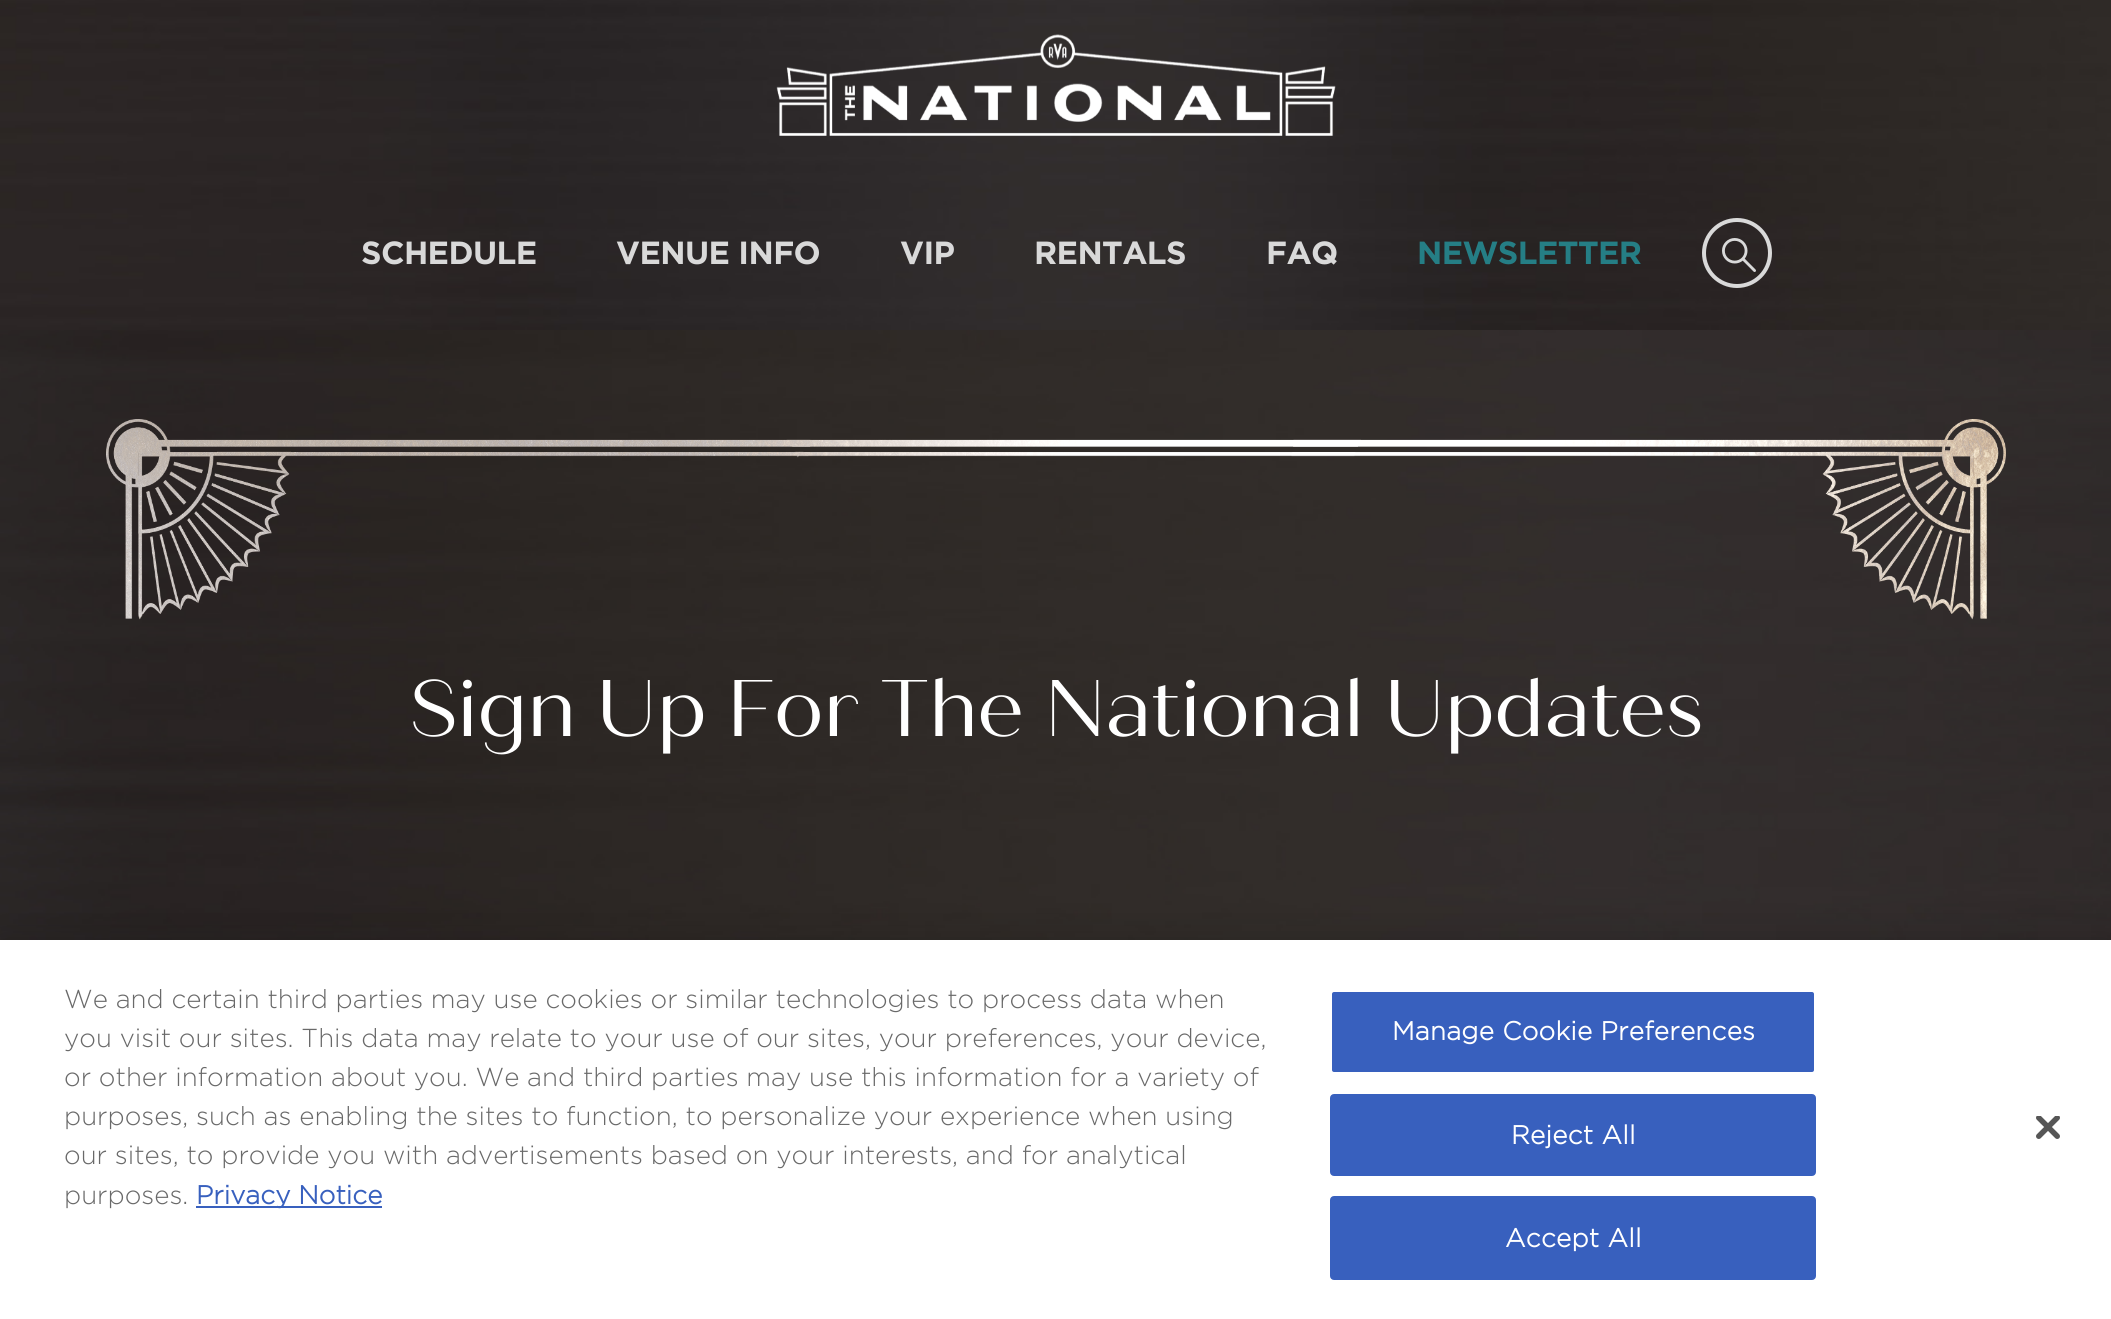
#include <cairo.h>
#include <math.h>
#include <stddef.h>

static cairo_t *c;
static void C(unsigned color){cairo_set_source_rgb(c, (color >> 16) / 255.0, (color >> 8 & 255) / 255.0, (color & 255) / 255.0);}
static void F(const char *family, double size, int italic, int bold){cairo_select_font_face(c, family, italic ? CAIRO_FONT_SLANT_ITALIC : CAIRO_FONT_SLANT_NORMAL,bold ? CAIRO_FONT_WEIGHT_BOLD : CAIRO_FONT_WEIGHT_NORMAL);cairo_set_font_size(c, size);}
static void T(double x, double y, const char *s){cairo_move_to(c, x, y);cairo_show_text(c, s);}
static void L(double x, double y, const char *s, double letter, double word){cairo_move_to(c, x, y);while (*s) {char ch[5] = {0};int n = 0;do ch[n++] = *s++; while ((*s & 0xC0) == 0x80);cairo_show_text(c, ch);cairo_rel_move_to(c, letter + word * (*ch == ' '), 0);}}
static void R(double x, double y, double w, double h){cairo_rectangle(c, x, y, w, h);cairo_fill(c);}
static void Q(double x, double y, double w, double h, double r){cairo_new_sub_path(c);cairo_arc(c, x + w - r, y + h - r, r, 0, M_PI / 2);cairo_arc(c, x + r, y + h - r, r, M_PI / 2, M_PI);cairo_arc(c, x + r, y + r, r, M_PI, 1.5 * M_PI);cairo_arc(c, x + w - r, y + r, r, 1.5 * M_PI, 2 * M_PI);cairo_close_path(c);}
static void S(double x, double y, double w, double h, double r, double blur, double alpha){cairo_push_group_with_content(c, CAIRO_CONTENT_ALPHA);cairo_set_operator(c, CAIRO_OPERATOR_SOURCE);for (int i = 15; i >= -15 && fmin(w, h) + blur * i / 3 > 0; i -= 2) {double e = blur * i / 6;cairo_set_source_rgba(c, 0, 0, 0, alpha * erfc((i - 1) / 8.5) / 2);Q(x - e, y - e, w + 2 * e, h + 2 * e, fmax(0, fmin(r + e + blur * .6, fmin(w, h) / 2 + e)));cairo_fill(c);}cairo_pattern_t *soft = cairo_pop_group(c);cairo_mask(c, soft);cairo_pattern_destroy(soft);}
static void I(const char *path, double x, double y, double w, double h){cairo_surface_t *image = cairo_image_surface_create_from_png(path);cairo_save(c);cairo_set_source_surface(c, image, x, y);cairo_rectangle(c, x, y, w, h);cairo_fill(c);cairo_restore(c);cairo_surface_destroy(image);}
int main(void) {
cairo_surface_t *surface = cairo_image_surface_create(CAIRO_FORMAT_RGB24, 2111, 1319);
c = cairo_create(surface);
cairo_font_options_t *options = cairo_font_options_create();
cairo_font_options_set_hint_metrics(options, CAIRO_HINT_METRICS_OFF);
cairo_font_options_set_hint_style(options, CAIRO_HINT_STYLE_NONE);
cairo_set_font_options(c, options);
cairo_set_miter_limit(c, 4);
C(0xffffff);
cairo_paint(c);
I("1.png",0,0,2111,330);
I("2.png",776,34,560,102);
F("Gotham",32,0,1);
C(0xd9d9d9);
L(361,264,"SCHEDULE",-.6,0);
L(616,264,"VENUE INFO",-.6,0);
L(900,264,"VIP",-.6,0);
L(1034,264,"RENTALS",-.6,0);
L(1266,264,"FAQ",-.6,0);
C(0x257e85);
L(1417,264,"NEWSLETTER",-.6,0);
cairo_new_path(c);
cairo_arc(c,1737,253,33,0,2 * M_PI);
C(0xd9d9d9);
cairo_set_line_width(c,4);
cairo_stroke(c);
I("3.png",1722,238,34,34);
I("4.png",0,330,2111,610);
I("5.png",106,419,1900,201);
F("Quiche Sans",80,0,0);
C(0xffffff);
L(409,736,"Sign Up For The National Updates",-.8,0);
C(0x000000);
S(0,940,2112,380,0,18,.2);
C(0xffffff);
R(0,940,2111,379);
F("Gotham Light",26,0,0);
C(0x696969);
T(64,1008,"We and certain third parties may use cookies or similar technologies to process data when");
T(64,1047,"you visit our sites. This data may relate to your use of our sites, your preferences, your device,");
T(64,1086,"or other information about you. We and third parties may use this information for a variety of");
T(64,1125,"purposes, such as enabling the sites to function, to personalize your experience when using");
T(64,1164,"our sites, to provide you with advertisements based on your interests, and for analytical");
T(64,1204,"purposes.");
C(0x3860be);
R(196,1206,186,2);
F("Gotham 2",26,0,1);
T(196,1204,"Privacy Notice");
Q(1331,991,484,82,3);
cairo_fill_preserve(c);
C(0xffffff);
cairo_set_line_width(c,2);
cairo_stroke(c);
L(1392,1040,"Manage Cookie Preferences",.25,0);
C(0x3860be);
Q(1331,1095,484,80,3);
cairo_fill_preserve(c);
cairo_stroke(c);
C(0xffffff);
L(1511,1144,"Reject All",.25,0);
C(0x3860be);
Q(1331,1197,484,82,3);
cairo_fill_preserve(c);
cairo_stroke(c);
C(0xffffff);
L(1505,1247,"Accept All",.25,0);
I("6.png",2036,1116,24,23);
cairo_surface_write_to_png(surface, "o.png");
cairo_font_options_destroy(options);
cairo_destroy(c);
cairo_surface_destroy(surface);
return 0;
}
